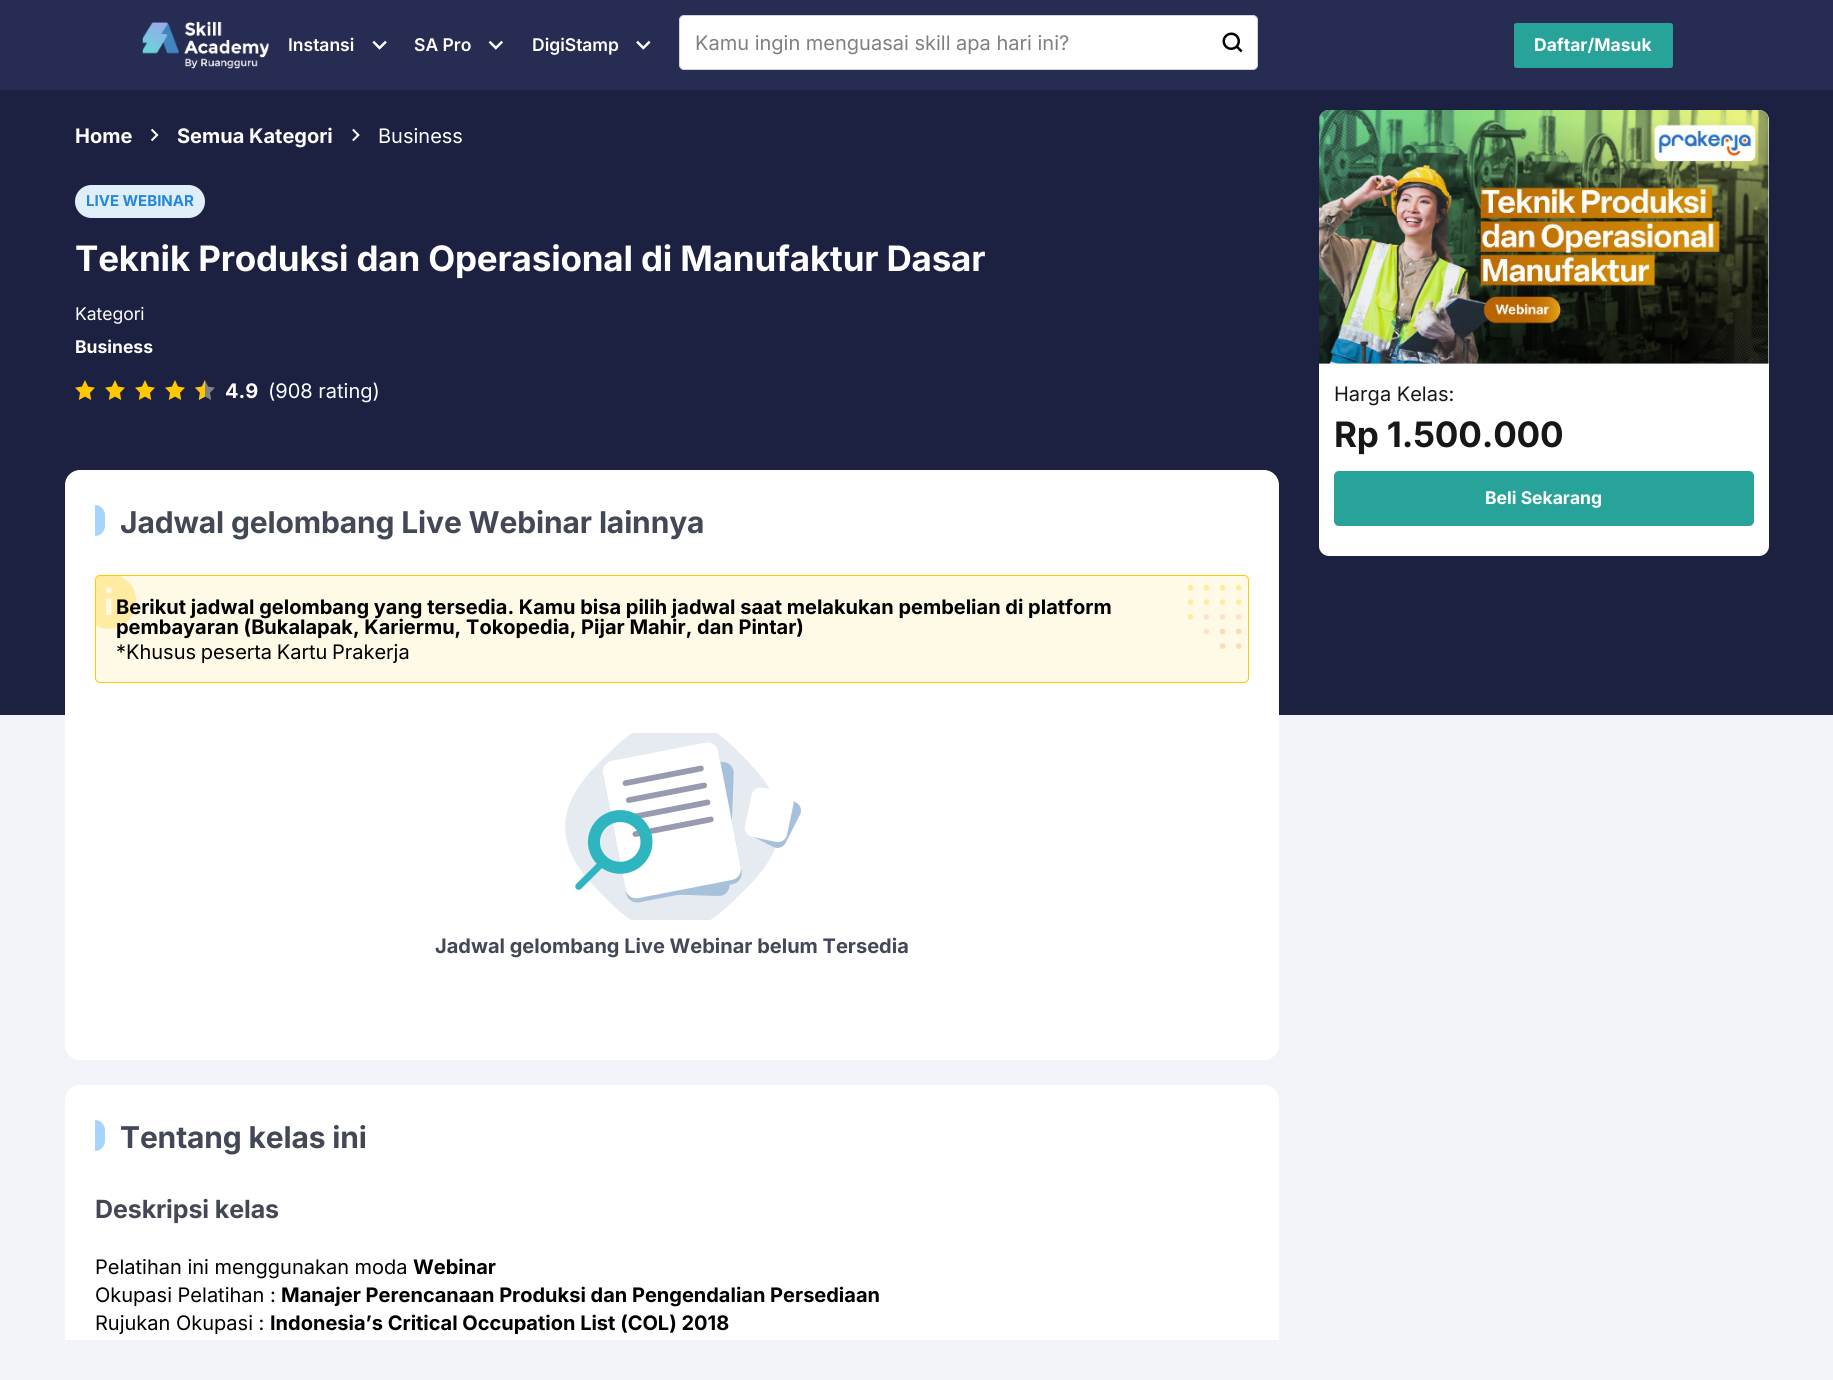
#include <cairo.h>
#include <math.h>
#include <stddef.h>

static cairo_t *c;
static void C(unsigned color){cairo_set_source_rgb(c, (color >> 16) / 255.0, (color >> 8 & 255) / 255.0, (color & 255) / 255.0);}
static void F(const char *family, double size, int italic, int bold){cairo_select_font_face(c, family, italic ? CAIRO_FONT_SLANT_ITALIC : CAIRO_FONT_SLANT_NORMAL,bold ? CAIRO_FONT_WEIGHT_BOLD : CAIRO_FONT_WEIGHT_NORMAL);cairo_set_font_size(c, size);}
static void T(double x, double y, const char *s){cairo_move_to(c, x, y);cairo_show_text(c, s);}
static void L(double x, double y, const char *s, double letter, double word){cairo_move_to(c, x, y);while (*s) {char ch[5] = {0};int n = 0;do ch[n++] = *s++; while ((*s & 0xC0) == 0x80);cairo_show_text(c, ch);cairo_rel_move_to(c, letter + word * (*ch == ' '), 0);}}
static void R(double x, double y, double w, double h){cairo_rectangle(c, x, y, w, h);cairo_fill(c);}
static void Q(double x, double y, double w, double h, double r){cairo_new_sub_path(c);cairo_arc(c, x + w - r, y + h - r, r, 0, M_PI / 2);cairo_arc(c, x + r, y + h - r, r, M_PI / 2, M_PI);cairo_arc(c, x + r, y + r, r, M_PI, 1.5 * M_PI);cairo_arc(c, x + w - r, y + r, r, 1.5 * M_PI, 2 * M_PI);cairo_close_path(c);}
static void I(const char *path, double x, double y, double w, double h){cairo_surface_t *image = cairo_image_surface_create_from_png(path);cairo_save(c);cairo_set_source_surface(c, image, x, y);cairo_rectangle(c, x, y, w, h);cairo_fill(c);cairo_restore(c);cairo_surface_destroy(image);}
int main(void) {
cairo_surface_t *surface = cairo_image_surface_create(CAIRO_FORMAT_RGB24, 1833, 1380);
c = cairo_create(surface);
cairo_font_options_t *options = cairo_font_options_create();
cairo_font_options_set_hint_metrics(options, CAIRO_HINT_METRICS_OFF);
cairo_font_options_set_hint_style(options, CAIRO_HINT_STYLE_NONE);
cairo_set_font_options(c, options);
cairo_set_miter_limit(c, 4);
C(0xf1f4f9);
cairo_paint(c);
C(0x272c52);
R(0,0,1833,90);
I("1.png",142,21,127,48);
F("Inter SemiBold",17.5,0,0);
C(0xffffff);
T(288,51,"Instansi");
I("2.png",372,40,15,10);
T(414,51,"SA Pro");
I("3.png",488,40,15,10);
T(532,51,"DigiStamp");
I("4.png",636,40,15,10);
Q(679.5,15.5,578,54,4.5);
cairo_fill_preserve(c);
C(0xcfd3db);
cairo_set_line_width(c,1);
cairo_stroke(c);
F("Inter",20,0,0);
C(0x808080);
T(695,50,"Kamu ingin menguasai skill apa hari ini?");
I("5.png",1222,32,21,21);
C(0x27a39a);
Q(1514,23,159,45,2.5);
cairo_fill(c);
F("Inter",17.5,0,1);
C(0xffffff);
T(1534,51,"Daftar/Masuk");
C(0x1c2142);
R(0,90,1833,625);
F("Inter",20,0,1);
C(0xffffff);
T(75,143,"Home");
I("6.png",150,128,9,14);
T(177,143,"Semua Kategori");
I("7.png",352,128,8,14);
F("Inter",20,0,0);
T(378,143,"Business");
C(0xe0eefa);
Q(75,185,130,33,16.5);
cairo_fill(c);
F("Inter",15,0,1);
C(0x2388d9);
T(86,206,"LIVE WEBINAR");
F("Inter",35,0,1);
C(0xffffff);
L(75,271,"Teknik Produksi dan Operasional di Manufaktur Dasar",-.18,0);
F("Inter",17.5,0,0);
T(75,320,"Kategori");
F("Inter",17.5,0,1);
T(75,353,"Business");
I("8.png",75,380,20,20);
I("8.png",105,380,20,20);
I("8.png",135,380,20,20);
I("8.png",165,380,20,20);
I("9.png",195,380,20,20);
F("Inter",20,0,1);
T(225,398,"4.9");
F("Inter",20,0,0);
T(268,398,"(908 rating)");
Q(65,470,1214,590,15);
cairo_fill(c);
C(0xa5d5ff);
cairo_new_path(c);
cairo_move_to(c,95,505);
cairo_curve_to(c,100.5,505,105,509.5,105,515);
cairo_line_to(c,105,526);
cairo_curve_to(c,105,531.5,100.5,536,95,536);
cairo_close_path(c);
cairo_fill(c);
F("Inter",30,0,1);
C(0x434856);
L(120,533,"Jadwal gelombang Live Webinar lainnya",-.15,0);
C(0xfffae6);
Q(95.5,575.5,1153,107,4.5);
cairo_fill_preserve(c);
C(0xffc800);
cairo_stroke(c);
I("10.png",96,576,40,53);
F("Inter",20,0,1);
C(0x000000);
T(116,614,"Berikut jadwal gelombang yang tersedia. Kamu bisa pilih jadwal saat melakukan pembelian di platform");
T(116,634,"pembayaran (Bukalapak, Kariermu, Tokopedia, Pijar Mahir, dan Pintar)");
F("Inter",20,0,0);
L(116,659,"*Khusus peserta Kartu Prakerja",0,-1);
I("11.png",1188,584,54,65);
I("12.png",565,733,236,187);
F("Inter",20,0,1);
C(0x434856);
T(435,953,"Jadwal gelombang Live Webinar belum Tersedia");
C(0xffffff);
cairo_new_path(c);
cairo_move_to(c,80,1085);
cairo_line_to(c,1264,1085);
cairo_curve_to(c,1272.5,1085,1279,1091.5,1279,1100);
cairo_line_to(c,1279,1340);
cairo_line_to(c,65,1340);
cairo_line_to(c,65,1100);
cairo_curve_to(c,65,1091.5,71.5,1085,80,1085);
cairo_close_path(c);
cairo_fill(c);
C(0xa5d5ff);
cairo_new_path(c);
cairo_move_to(c,95,1120);
cairo_curve_to(c,100.5,1120,105,1124.5,105,1130);
cairo_line_to(c,105,1141);
cairo_curve_to(c,105,1146.5,100.5,1151,95,1151);
cairo_close_path(c);
cairo_fill(c);
F("Inter",30,0,1);
C(0x434856);
L(120,1148,"Tentang kelas ini",-.15,0);
F("Inter",25,0,1);
L(95,1218,"Deskripsi kelas",-.1,0);
F("Inter",20,0,0);
C(0x000000);
T(95,1274,"Pelatihan ini menggunakan moda");
F("Inter",20,0,1);
T(413,1274,"Webinar");
F("Inter",20,0,0);
T(95,1302,"Okupasi Pelatihan :");
F("Inter",20,0,1);
T(281,1302,"Manajer Perencanaan Produksi dan Pengendalian Persediaan");
F("Inter",20,0,0);
T(95,1330,"Rujukan Okupasi :");
F("Inter",20,0,1);
T(270,1330,"Indonesia’s Critical Occupation List (COL) 2018");
C(0xf1f4f9);
cairo_new_path(c);
cairo_move_to(c,1329,110);
cairo_line_to(c,1759,110);
cairo_curve_to(c,1764.5,110,1769,114.5,1769,120);
cairo_line_to(c,1769,364);
cairo_line_to(c,1319,364);
cairo_line_to(c,1319,120);
cairo_curve_to(c,1319,114.5,1323.5,110,1329,110);
cairo_close_path(c);
cairo_fill(c);
I("13.png",1319,110,450,254);
C(0xffffff);
cairo_new_path(c);
cairo_move_to(c,1319,364);
cairo_line_to(c,1769,364);
cairo_line_to(c,1769,546);
cairo_curve_to(c,1769,551.5,1764.5,556,1759,556);
cairo_line_to(c,1329,556);
cairo_curve_to(c,1323.5,556,1319,551.5,1319,546);
cairo_close_path(c);
cairo_fill(c);
F("Inter",20,0,0);
C(0x171717);
T(1334,401,"Harga Kelas:");
F("Inter",35,0,1);
L(1334,447,"Rp 1.500.000",-.18,0);
C(0x27a39a);
Q(1334,471,420,55,5);
cairo_fill(c);
F("Inter",17.5,0,1);
C(0xffffff);
T(1485,504,"Beli Sekarang");
cairo_surface_write_to_png(surface, "o.png");
cairo_font_options_destroy(options);
cairo_destroy(c);
cairo_surface_destroy(surface);
return 0;
}
